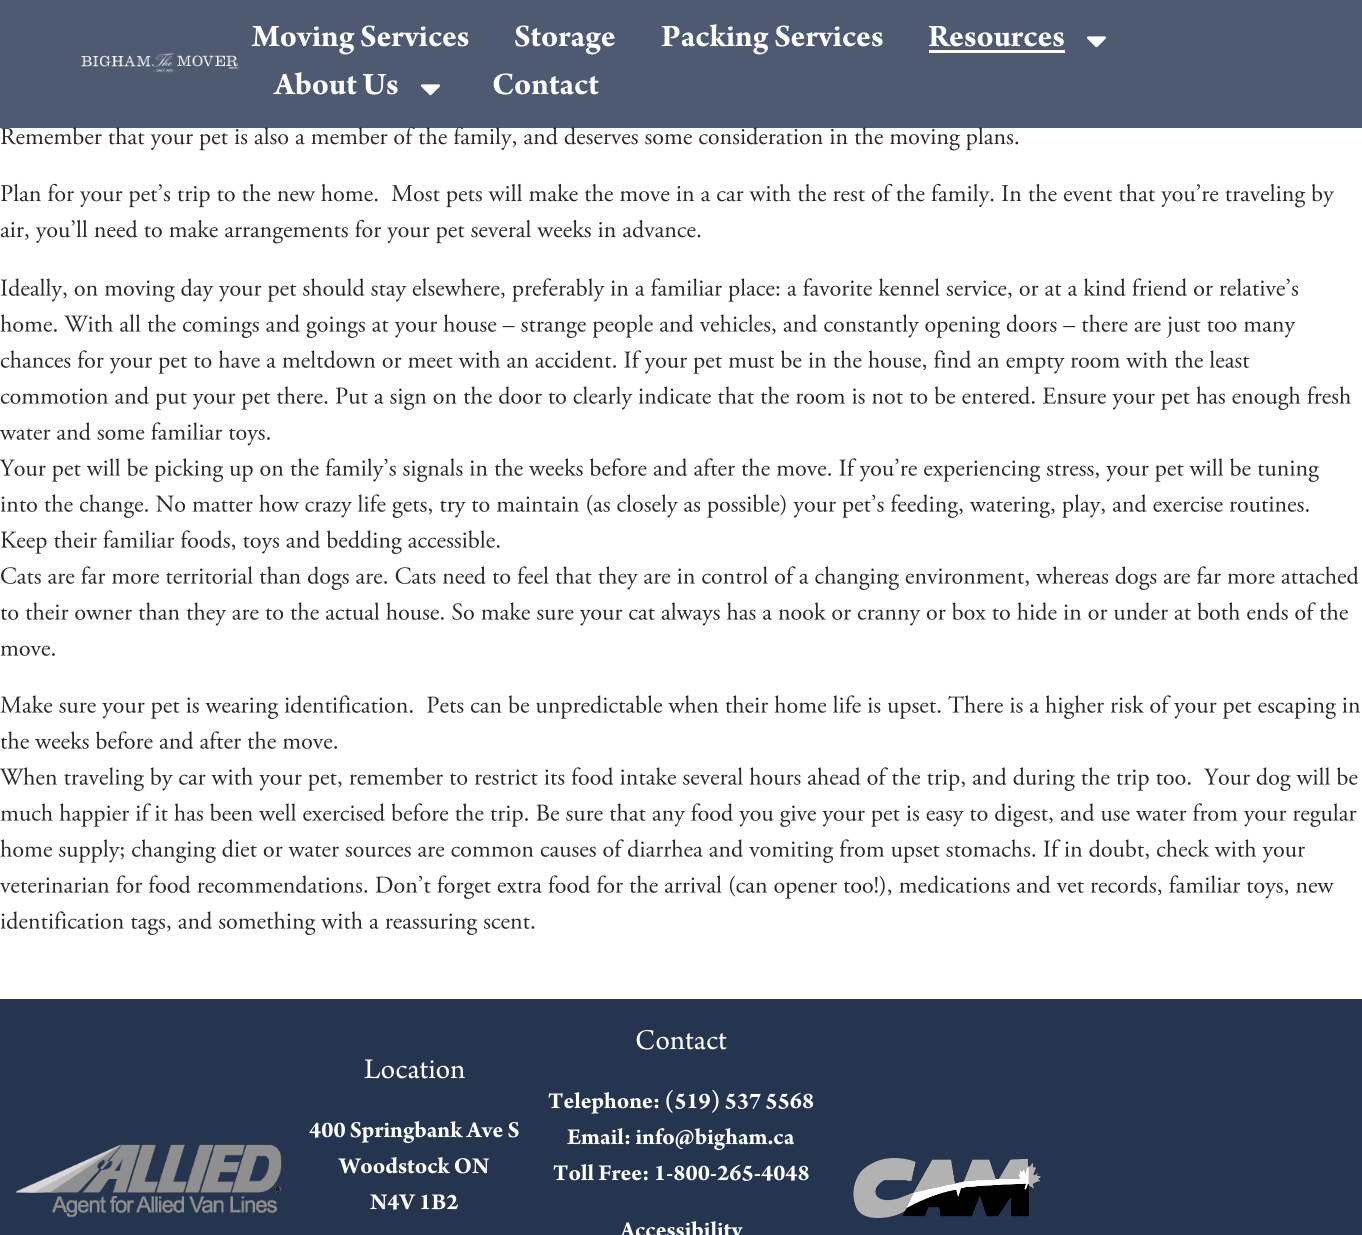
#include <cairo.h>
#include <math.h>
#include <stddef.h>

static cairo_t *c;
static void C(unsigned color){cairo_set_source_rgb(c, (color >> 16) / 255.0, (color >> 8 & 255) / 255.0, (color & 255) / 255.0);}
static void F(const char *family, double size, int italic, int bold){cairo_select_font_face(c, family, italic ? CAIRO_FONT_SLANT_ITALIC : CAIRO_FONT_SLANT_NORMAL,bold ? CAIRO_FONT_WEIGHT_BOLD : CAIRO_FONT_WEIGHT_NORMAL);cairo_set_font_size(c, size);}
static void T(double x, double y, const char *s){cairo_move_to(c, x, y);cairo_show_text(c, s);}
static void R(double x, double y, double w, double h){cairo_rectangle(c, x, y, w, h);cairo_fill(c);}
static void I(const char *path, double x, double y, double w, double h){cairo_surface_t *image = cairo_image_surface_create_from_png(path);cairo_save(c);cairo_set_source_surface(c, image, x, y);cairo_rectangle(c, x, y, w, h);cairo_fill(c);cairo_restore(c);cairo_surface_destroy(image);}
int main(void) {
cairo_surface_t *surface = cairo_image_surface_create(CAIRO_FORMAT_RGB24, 1362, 1235);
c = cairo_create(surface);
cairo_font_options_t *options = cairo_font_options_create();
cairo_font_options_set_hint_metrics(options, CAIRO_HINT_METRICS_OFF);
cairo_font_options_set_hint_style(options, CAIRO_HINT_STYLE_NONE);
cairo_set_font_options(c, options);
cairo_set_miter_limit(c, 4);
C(0xffffff);
cairo_paint(c);
I("3.png",1,126,1018,25);
cairo_set_source_rgba(c,0.18,0.243,0.345,0.85);
R(0,0,1362,128);
I("1.png",81,52,158,21);
F("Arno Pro",33,0,1);
C(0xffffff);
T(252,46,"Moving Services");
T(514,46,"Storage");
T(661,46,"Packing Services");
T(928,46,"Resources");
R(929,50,136,3);
I("2.png",1086,36,20,12);
T(274,94,"About Us");
I("2.png",420,84,20,12);
T(492,94,"Contact");
I("4.png",1,183,1333,25);
I("5.png",0,219,701,25);
I("6.png",1,278,1297,24);
I("7.png",0,314,1296,24);
I("8.png",0,350,1250,24);
I("9.png",0,386,1351,24);
I("10.png",0,422,270,24);
I("11.png",0,458,1319,24);
I("12.png",0,494,1309,24);
I("13.png",1,530,499,24);
I("14.png",1,566,1358,24);
I("15.png",0,602,1348,24);
I("16.png",0,645,55,11);
I("17.png",0,695,1360,24);
I("18.png",0,731,337,18);
I("19.png",0,767,1358,24);
I("20.png",0,803,1357,24);
I("21.png",0,839,1305,24);
I("22.png",0,875,1334,24);
I("23.png",0,911,535,24);
C(0x26354f);
R(0,999,1362,236);
I("24.png",15,1144,267,74);
F("Arno Pro",30,0,0);
C(0xffffff);
T(364,1078,"Location");
F("Arno Pro",24,0,1);
T(309,1137,"400 Springbank Ave S");
T(339,1173,"Woodstock ON");
T(370,1209,"N4V 1B2");
F("Arno Pro",30,0,0);
T(635,1049,"Contact");
F("Arno Pro",24,0,1);
T(548,1108,"Telephone: (519) 537 5568");
T(567,1144,"Email: info@bigham.ca");
T(553,1180,"Toll Free: 1-800-265-4048");
T(620,1237,"Accessibility");
I("25.png",853,1158,188,60);
cairo_surface_write_to_png(surface, "o.png");
cairo_font_options_destroy(options);
cairo_destroy(c);
cairo_surface_destroy(surface);
return 0;
}
